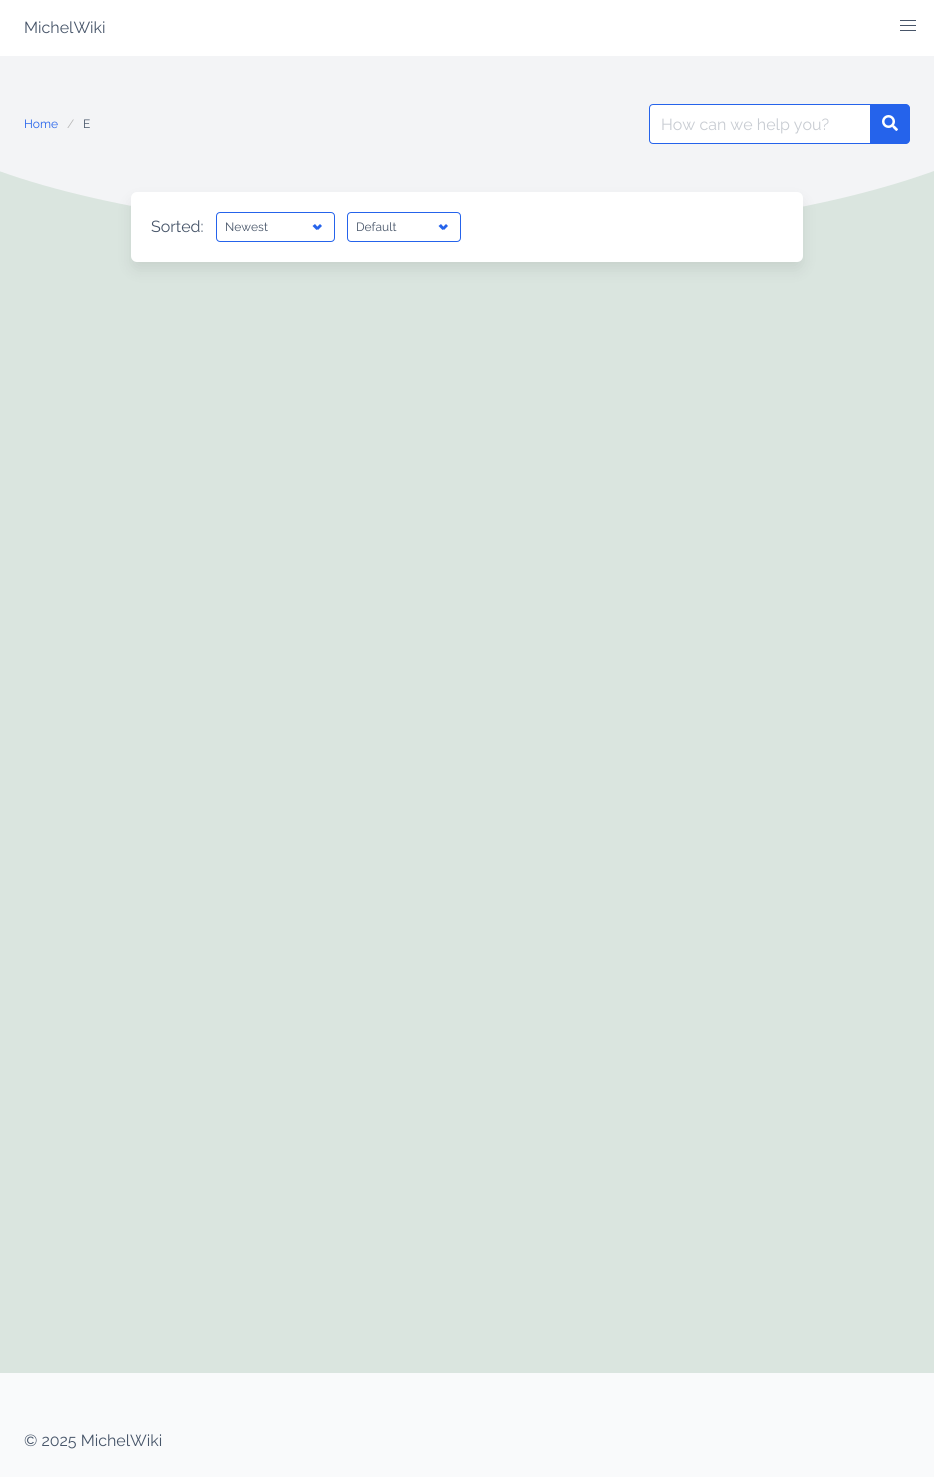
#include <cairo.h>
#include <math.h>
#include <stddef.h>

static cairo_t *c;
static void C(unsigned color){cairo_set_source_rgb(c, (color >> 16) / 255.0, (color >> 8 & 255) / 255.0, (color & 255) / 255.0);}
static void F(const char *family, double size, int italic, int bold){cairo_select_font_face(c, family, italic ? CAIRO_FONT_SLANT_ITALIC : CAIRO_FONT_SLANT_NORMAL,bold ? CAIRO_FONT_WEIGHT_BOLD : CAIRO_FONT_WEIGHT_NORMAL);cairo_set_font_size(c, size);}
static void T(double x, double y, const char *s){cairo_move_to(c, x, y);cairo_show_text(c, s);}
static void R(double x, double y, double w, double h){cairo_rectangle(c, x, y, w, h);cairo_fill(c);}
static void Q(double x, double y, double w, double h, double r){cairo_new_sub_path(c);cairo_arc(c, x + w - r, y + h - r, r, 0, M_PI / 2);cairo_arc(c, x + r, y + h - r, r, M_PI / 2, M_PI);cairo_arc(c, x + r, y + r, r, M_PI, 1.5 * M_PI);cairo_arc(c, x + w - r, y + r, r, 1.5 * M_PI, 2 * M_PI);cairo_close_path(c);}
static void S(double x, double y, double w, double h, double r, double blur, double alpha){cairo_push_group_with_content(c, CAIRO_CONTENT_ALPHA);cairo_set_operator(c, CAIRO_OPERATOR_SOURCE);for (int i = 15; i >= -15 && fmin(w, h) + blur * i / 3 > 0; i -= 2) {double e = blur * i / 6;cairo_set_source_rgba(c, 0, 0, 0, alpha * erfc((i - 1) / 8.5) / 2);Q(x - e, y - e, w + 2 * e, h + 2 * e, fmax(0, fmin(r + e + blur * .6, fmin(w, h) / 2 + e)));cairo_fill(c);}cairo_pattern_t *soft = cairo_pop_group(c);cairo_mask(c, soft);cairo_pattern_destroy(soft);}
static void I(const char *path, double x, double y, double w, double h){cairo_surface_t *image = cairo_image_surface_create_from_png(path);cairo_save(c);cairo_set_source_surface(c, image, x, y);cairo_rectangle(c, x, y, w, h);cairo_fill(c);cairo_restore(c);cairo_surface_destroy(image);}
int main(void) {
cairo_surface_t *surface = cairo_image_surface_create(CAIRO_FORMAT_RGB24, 934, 1477);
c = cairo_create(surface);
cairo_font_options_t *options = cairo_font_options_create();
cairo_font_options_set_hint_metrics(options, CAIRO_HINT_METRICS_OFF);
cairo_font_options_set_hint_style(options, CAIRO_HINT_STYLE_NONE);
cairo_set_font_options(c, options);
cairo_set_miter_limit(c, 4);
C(0xdae5df);
cairo_paint(c);
C(0xffffff);
R(0,0,934,56);
F("Raleway",16,0,0);
C(0x475569);
T(24,33,"MichelWiki");
R(900,20,16,1);
R(900,25,16,1);
R(900,30,16,1);
C(0xf3f4f6);
cairo_new_path(c);
cairo_move_to(c,-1,171);
cairo_line_to(c,-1,56);
cairo_line_to(c,934,56);
cairo_line_to(c,934,171);
cairo_curve_to(c,823,211,663,236,474,236);
cairo_curve_to(c,286,236,110,211,-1,171);
cairo_close_path(c);
cairo_fill(c);
F("Raleway",12,0,0);
C(0x2563eb);
T(24,128,"Home");
C(0xb5b5b5);
T(67,128,"/");
C(0x475569);
T(83,128,"E");
C(0xffffff);
cairo_new_path(c);
cairo_move_to(c,653,104.5);
cairo_line_to(c,870.5,104.5);
cairo_line_to(c,870.5,143.5);
cairo_line_to(c,653,143.5);
cairo_curve_to(c,651,143.5,649.5,142,649.5,140);
cairo_line_to(c,649.5,108);
cairo_curve_to(c,649.5,106,651,104.5,653,104.5);
cairo_close_path(c);
cairo_fill_preserve(c);
C(0x2563eb);
cairo_set_line_width(c,1);
cairo_stroke(c);
F("Raleway",16,0,0);
C(0xc8ccd2);
T(661,130,"How can we help you?");
C(0x2563eb);
cairo_new_path(c);
cairo_move_to(c,870,104);
cairo_line_to(c,906,104);
cairo_curve_to(c,908,104,910,106,910,108);
cairo_line_to(c,910,140);
cairo_curve_to(c,910,142,908,144,906,144);
cairo_line_to(c,870,144);
cairo_close_path(c);
cairo_fill(c);
I("1.png",882,115,16,16);
C(0x0a0a0a);
S(133,202,668,66,4,8,.1);
C(0xffffff);
Q(131,192,672,70,6);
cairo_fill(c);
C(0x475569);
T(151,232,"Sorted:");
Q(216.5,212.5,118,29,3.5);
C(0x2563eb);
cairo_stroke(c);
F("Raleway",12,0,0);
C(0x475569);
T(225,231,"Newest");
C(0x2563eb);
cairo_new_path(c);
cairo_move_to(c,316,228);
cairo_line_to(c,320,224);
cairo_line_to(c,322,226);
cairo_line_to(c,318,230);
cairo_close_path(c);
cairo_fill(c);
cairo_new_path(c);
cairo_move_to(c,312.5,226);
cairo_line_to(c,315,224);
cairo_line_to(c,318.5,228);
cairo_line_to(c,316.5,230);
cairo_close_path(c);
cairo_fill(c);
Q(347.5,212.5,113,29,3.5);
cairo_stroke(c);
C(0x475569);
T(356,231,"Default");
C(0x2563eb);
cairo_new_path(c);
cairo_move_to(c,442,228);
cairo_line_to(c,446,224);
cairo_line_to(c,448,226);
cairo_line_to(c,444,230);
cairo_close_path(c);
cairo_fill(c);
cairo_new_path(c);
cairo_move_to(c,438.5,226);
cairo_line_to(c,441,224);
cairo_line_to(c,444.5,228);
cairo_line_to(c,442.5,230);
cairo_close_path(c);
cairo_fill(c);
C(0xf9fafb);
R(0,1373,934,104);
F("Raleway",16,0,0);
C(0x475569);
T(24,1446,"© 2025 MichelWiki");
cairo_surface_write_to_png(surface, "o.png");
cairo_font_options_destroy(options);
cairo_destroy(c);
cairo_surface_destroy(surface);
return 0;
}
